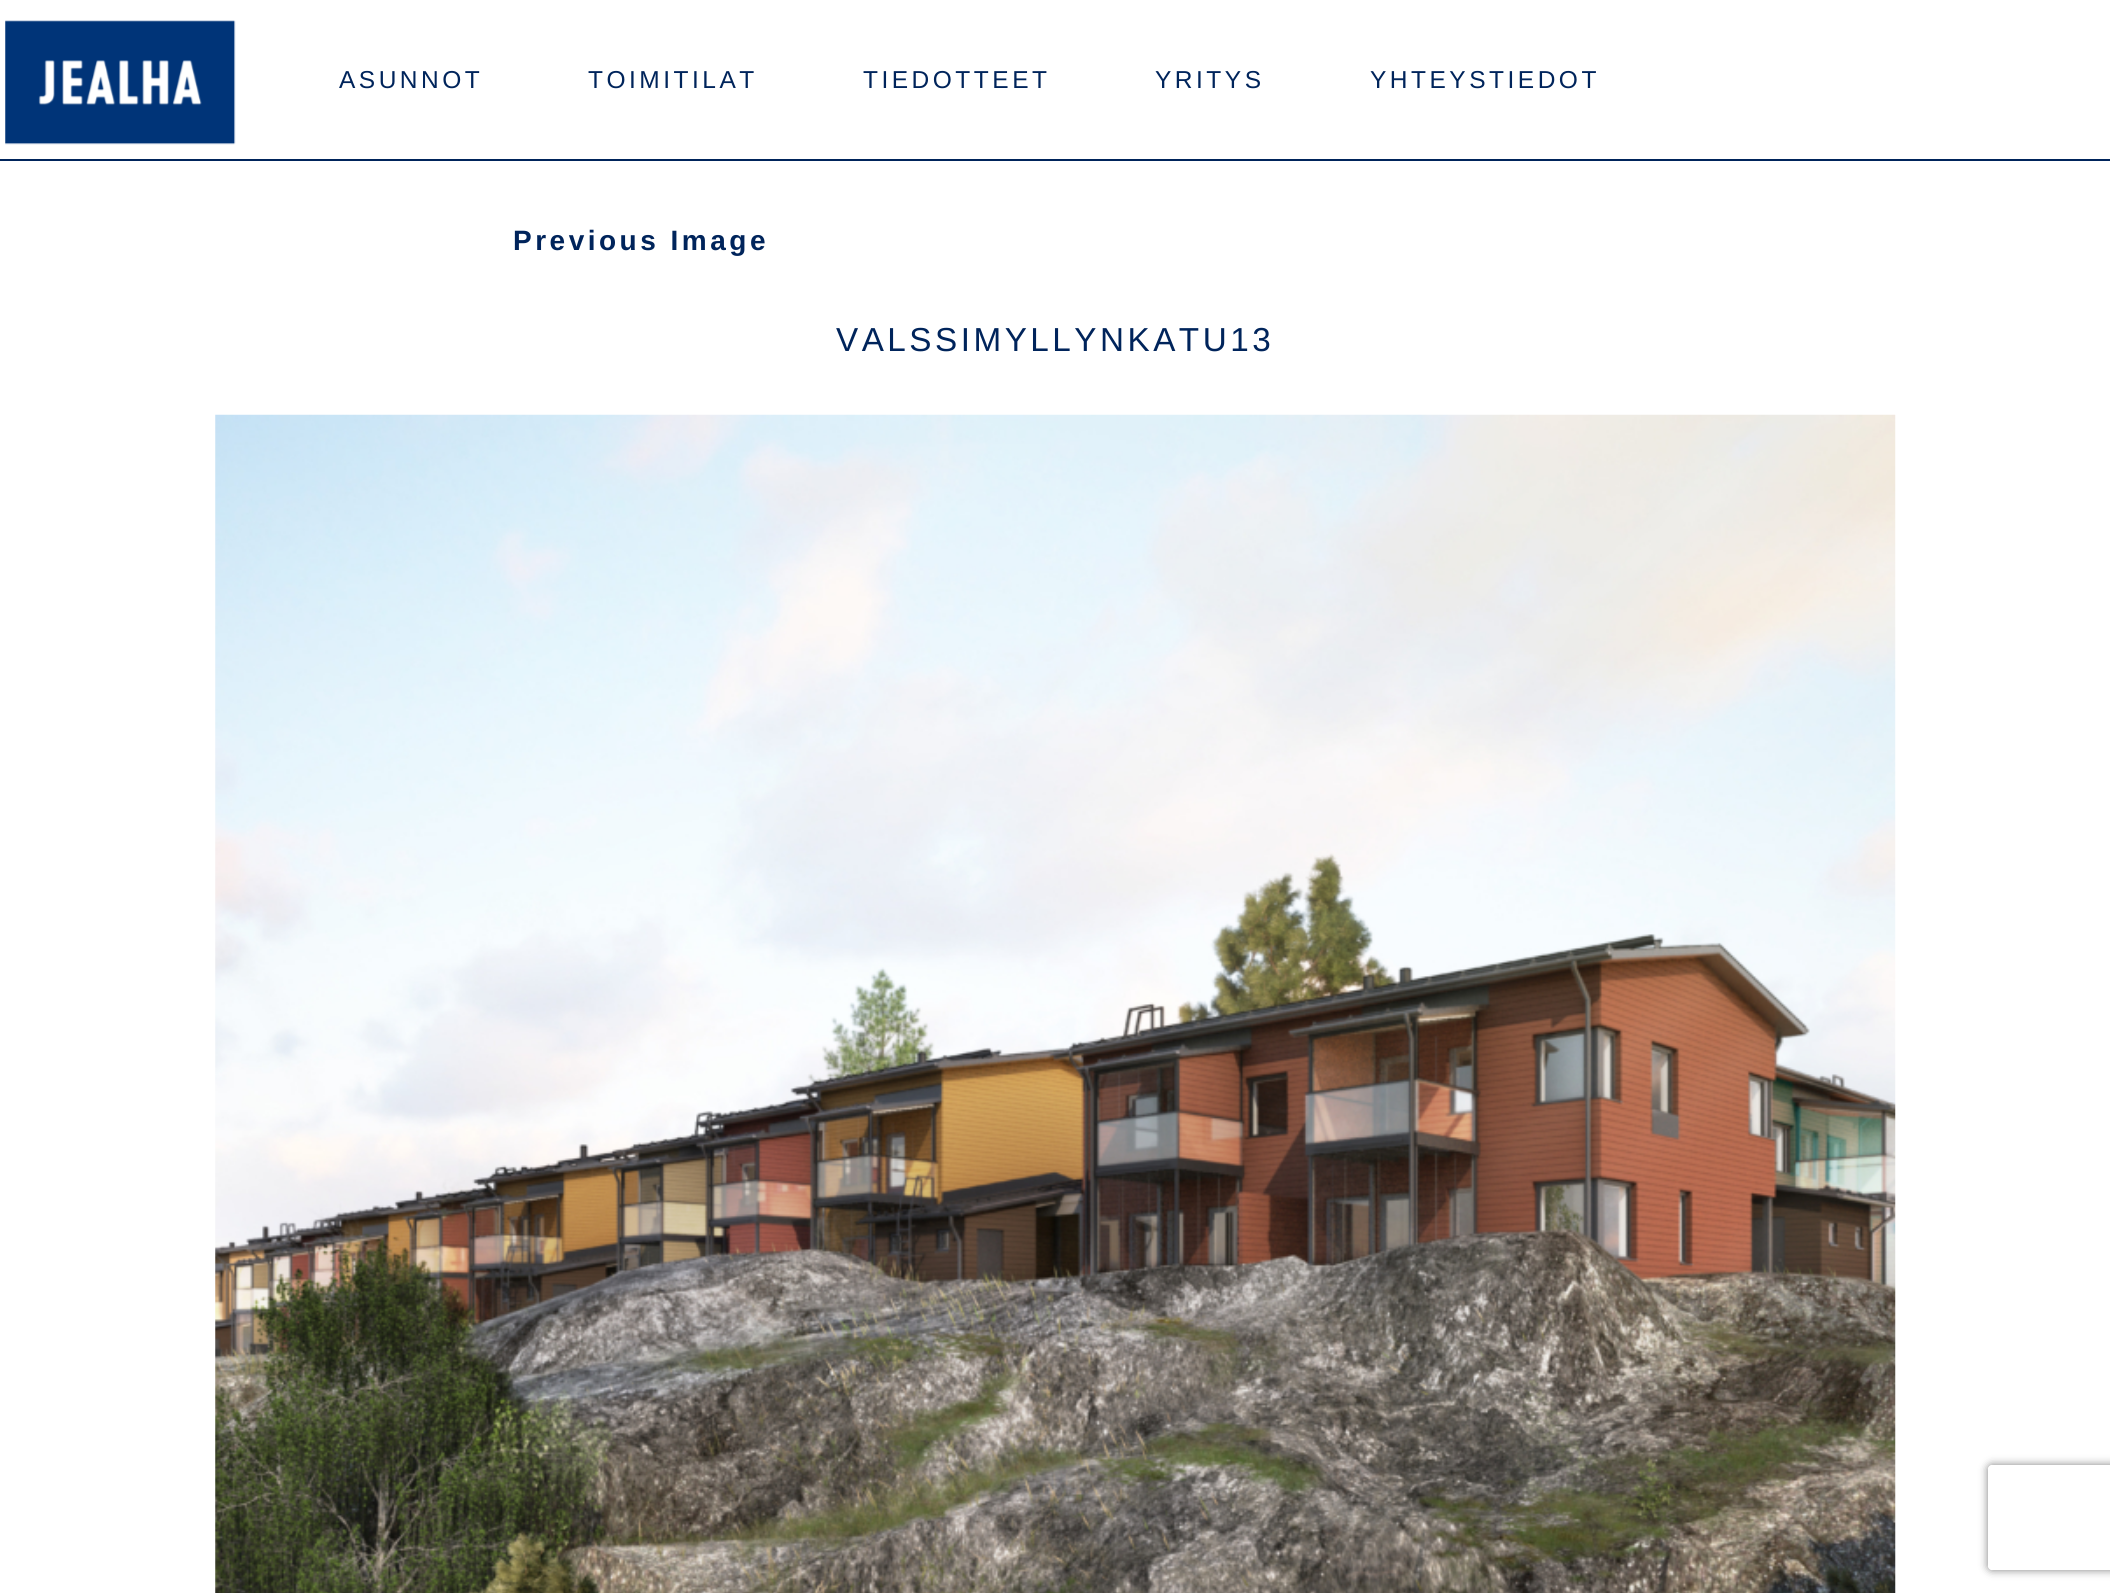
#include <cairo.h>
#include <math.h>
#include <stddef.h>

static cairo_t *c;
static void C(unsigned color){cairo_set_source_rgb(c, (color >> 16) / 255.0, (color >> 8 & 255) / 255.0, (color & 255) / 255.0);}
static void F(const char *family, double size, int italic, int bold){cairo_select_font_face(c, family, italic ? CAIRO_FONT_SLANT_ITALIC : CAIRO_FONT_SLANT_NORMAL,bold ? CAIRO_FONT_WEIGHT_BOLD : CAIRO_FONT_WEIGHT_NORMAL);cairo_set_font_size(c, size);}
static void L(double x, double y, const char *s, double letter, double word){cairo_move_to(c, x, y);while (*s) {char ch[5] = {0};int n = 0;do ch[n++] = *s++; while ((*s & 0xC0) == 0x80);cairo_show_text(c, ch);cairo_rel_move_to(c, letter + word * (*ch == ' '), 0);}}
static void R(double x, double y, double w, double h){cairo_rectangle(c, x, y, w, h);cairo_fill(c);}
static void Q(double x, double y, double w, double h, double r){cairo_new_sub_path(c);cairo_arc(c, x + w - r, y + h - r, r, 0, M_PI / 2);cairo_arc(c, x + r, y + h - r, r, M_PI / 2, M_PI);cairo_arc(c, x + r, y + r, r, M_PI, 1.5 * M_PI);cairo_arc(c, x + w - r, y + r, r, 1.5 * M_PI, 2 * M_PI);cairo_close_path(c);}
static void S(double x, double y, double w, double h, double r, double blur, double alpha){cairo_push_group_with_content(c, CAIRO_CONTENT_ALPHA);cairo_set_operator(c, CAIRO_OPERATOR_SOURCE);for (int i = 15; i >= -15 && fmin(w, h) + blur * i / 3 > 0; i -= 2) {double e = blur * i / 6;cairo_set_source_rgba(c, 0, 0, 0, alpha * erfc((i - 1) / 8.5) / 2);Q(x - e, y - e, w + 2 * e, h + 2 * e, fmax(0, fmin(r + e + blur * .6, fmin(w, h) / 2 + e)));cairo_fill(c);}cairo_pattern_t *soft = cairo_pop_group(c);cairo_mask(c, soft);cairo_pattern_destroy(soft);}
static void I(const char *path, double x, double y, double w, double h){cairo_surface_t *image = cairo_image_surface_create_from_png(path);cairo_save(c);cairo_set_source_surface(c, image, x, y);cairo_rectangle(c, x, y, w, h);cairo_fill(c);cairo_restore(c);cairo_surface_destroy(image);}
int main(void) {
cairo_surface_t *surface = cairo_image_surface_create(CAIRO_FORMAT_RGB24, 2110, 1593);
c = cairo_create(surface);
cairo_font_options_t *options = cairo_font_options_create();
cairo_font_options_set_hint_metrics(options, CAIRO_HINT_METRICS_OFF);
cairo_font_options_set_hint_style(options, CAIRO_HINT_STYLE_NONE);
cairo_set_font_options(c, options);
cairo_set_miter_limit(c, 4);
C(0xffffff);
cairo_paint(c);
C(0x00245b);
R(0,159,2110,2);
I("1.png",5,20,231,125);
F("Liberation Sans",24.5,0,0);
L(339,88,"ASUNNOT",3.5,0);
L(588,88,"TOIMITILAT",3.5,0);
L(863,88,"TIEDOTTEET",3.5,0);
L(1155,88,"YRITYS",3.5,0);
L(1370,88,"YHTEYSTIEDOT",3.5,0);
F("Liberation Sans",28,0,1);
L(513,250,"Previous Image",3.5,0);
F("Liberation Sans",33.25,0,0);
L(836,351,"VALSSIMYLLYNKATU13",3.5,0);
I("2.png",215,414,1681,1179);
cairo_save(c);
cairo_set_fill_rule(c,CAIRO_FILL_RULE_EVEN_ODD);
cairo_new_path(c);
cairo_move_to(c,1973,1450);
cairo_line_to(c,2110,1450);
cairo_line_to(c,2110,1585);
cairo_line_to(c,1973,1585);
cairo_close_path(c);
cairo_move_to(c,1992,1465);
cairo_line_to(c,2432,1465);
cairo_curve_to(c,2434,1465,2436,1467,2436,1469);
cairo_line_to(c,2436,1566);
cairo_curve_to(c,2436,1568,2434,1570,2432,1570);
cairo_line_to(c,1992,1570);
cairo_curve_to(c,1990,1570,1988,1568,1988,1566);
cairo_line_to(c,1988,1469);
cairo_curve_to(c,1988,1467,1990,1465,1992,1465);
cairo_close_path(c);
cairo_clip(c);
C(0x808080);
S(1988,1465,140,105,4,4.5,1);
cairo_restore(c);
cairo_surface_write_to_png(surface, "o.png");
cairo_font_options_destroy(options);
cairo_destroy(c);
cairo_surface_destroy(surface);
return 0;
}
